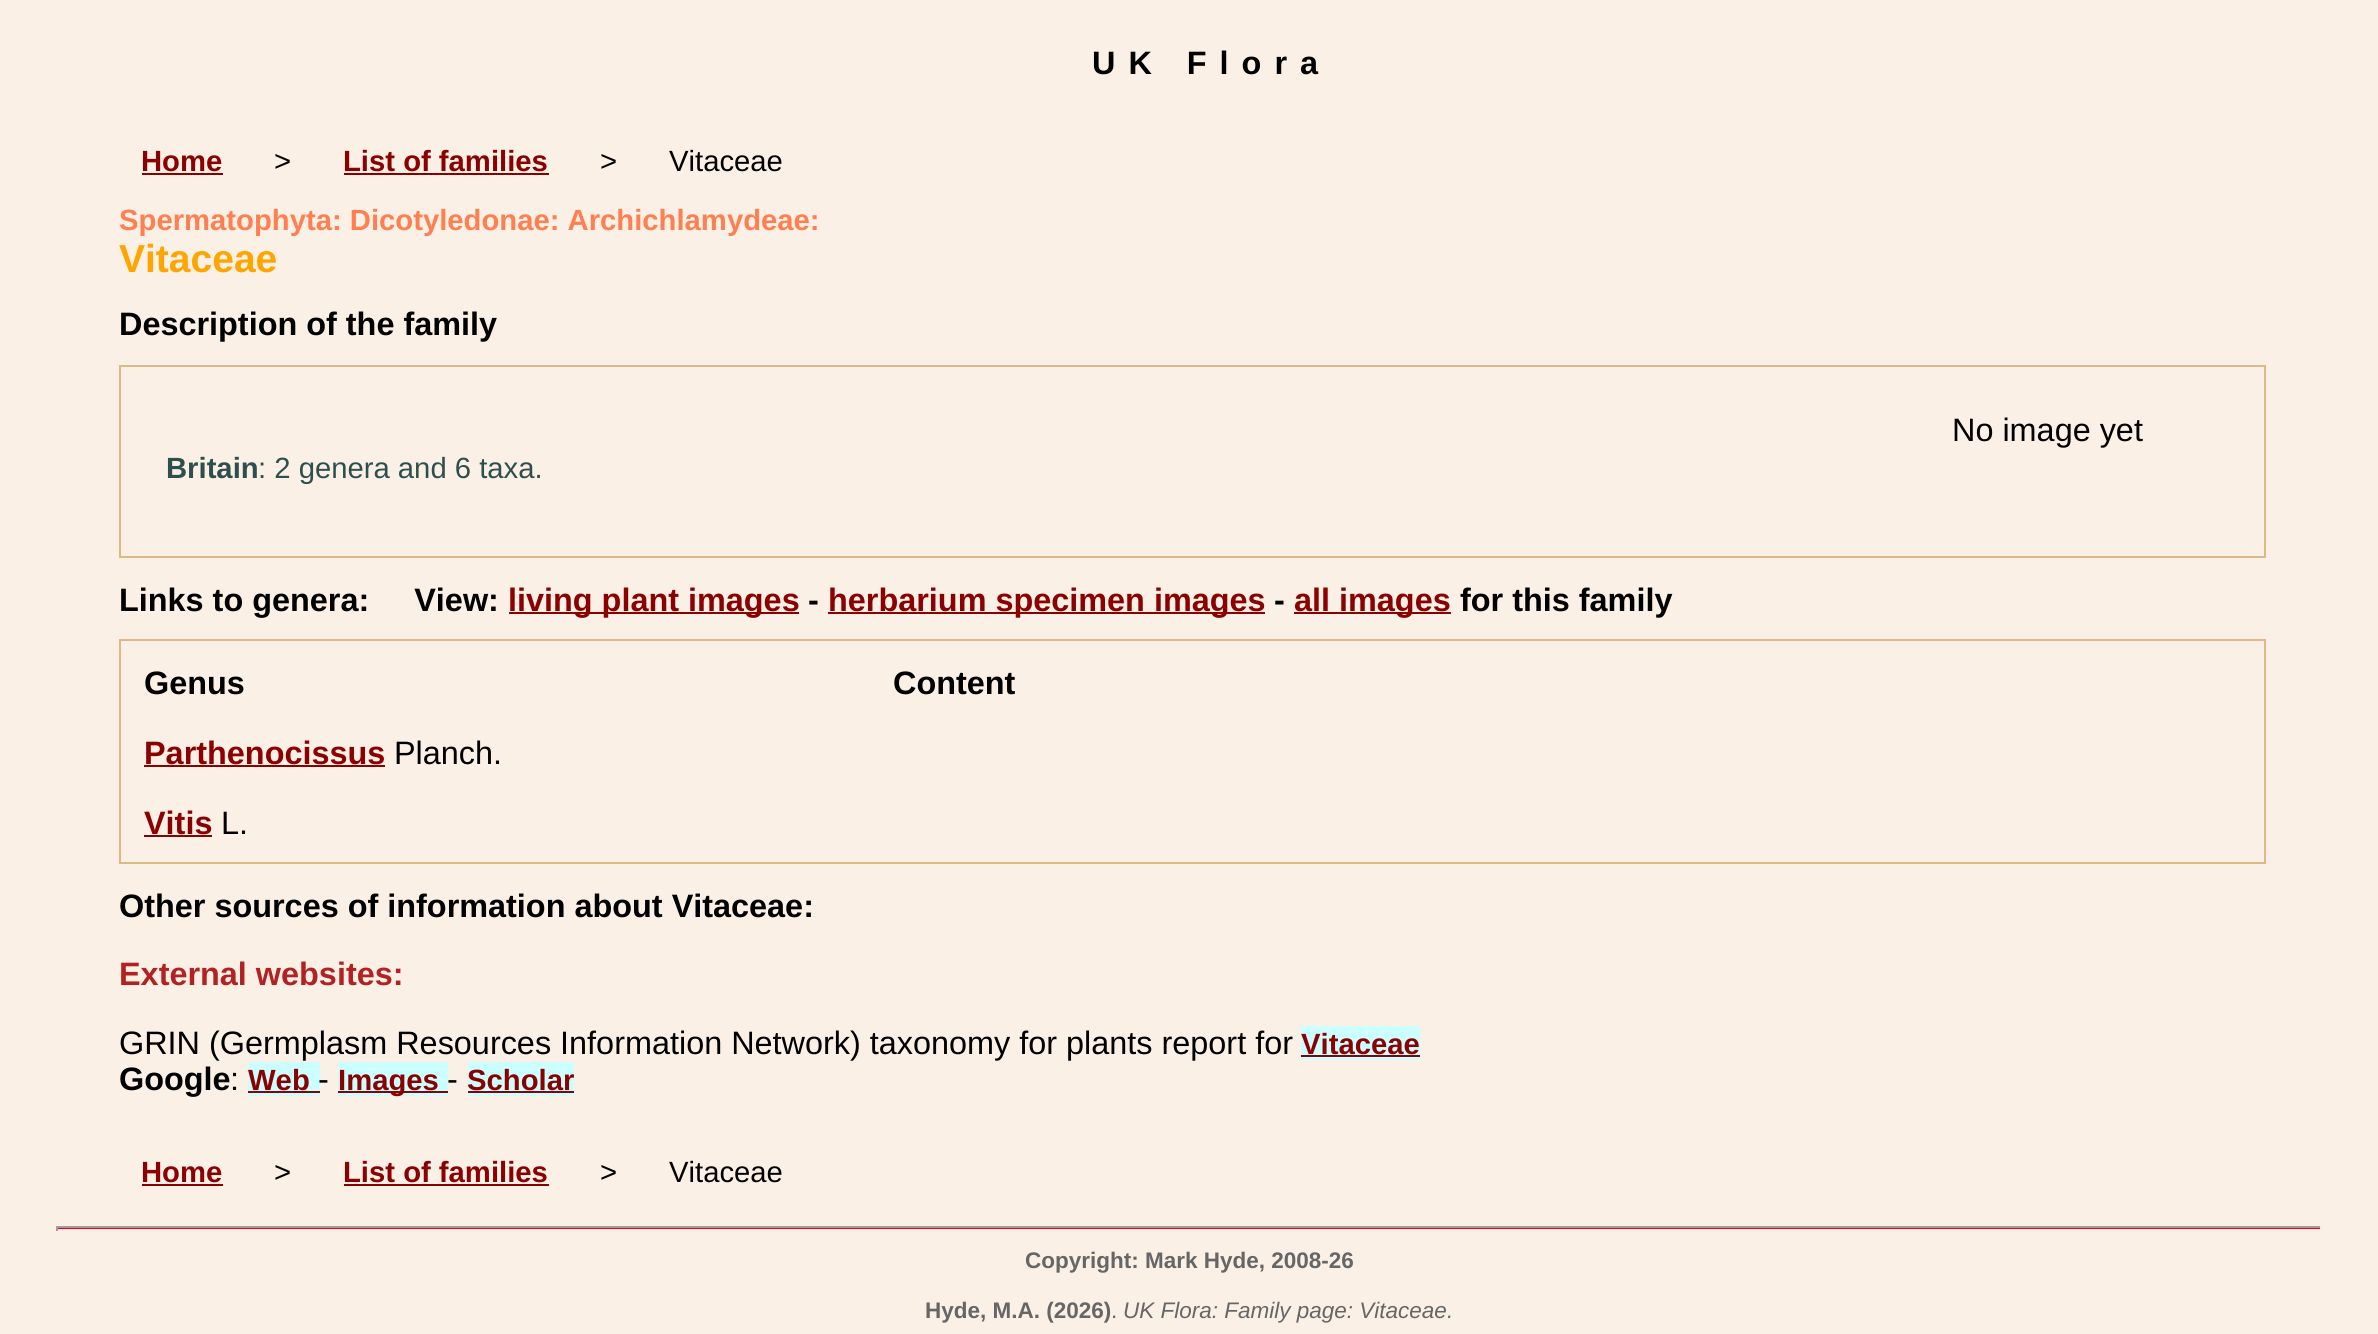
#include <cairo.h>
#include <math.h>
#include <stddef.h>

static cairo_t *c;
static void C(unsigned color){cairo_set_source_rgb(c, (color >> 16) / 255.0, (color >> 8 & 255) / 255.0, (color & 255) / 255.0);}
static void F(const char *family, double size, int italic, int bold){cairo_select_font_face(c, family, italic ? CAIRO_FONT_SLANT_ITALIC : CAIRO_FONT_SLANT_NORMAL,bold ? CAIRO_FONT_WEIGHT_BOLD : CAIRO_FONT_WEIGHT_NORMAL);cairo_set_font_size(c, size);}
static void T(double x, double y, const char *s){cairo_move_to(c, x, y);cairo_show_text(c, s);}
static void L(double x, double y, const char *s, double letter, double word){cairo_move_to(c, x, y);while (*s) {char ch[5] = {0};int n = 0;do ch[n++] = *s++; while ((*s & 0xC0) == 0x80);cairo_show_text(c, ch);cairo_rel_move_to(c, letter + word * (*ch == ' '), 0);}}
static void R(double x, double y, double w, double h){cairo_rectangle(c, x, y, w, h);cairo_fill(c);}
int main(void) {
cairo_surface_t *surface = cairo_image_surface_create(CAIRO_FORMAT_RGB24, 2378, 1334);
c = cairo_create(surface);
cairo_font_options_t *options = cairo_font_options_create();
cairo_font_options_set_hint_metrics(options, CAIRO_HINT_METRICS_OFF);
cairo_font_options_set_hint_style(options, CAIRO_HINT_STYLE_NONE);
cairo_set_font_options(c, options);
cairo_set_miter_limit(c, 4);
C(0xfaf0e6);
cairo_paint(c);
F("Liberation Sans",32.4,0,1);
C(0x000000);
L(1092,74,"UK Flora",13,0);
F("Liberation Sans",29.25,0,1);
C(0x8b0000);
T(141,171,"Home");
R(142,173,81,2);
F("Liberation Sans",29.25,0,0);
C(0x000000);
T(274,171,">");
F("Liberation Sans",29.25,0,1);
C(0x8b0000);
T(343,171,"List of families");
R(344,173,205,2);
F("Liberation Sans",29.25,0,0);
C(0x000000);
T(600,171,">");
T(669,171,"Vitaceae");
F("Liberation Sans",29.25,0,1);
C(0xff7f50);
T(119,230,"Spermatophyta: Dicotyledonae: Archichlamydeae:");
F("Liberation Sans",39,0,1);
C(0xffa500);
T(119,272,"Vitaceae");
F("Liberation Sans",32.4,0,1);
C(0x000000);
T(119,335,"Description of the family");
cairo_rectangle(c,120,366,2145,191);
C(0xdeb887);
cairo_stroke(c);
F("Liberation Sans",32.4,0,0);
C(0x000000);
T(1952,441,"No image yet");
F("Liberation Sans",29.25,0,1);
C(0x2f4f4f);
T(166,478,"Britain");
F("Liberation Sans",29.25,0,0);
T(258,478,": 2 genera and 6 taxa.");
F("Liberation Sans",32.4,0,1);
C(0x000000);
T(119,611,"Links to genera:     View:");
C(0x8b0000);
R(509,612,290,2);
T(508,611,"living plant images");
C(0x000000);
T(808,611,"-");
C(0x8b0000);
R(828,612,437,2);
T(828,611,"herbarium specimen images");
C(0x000000);
T(1274,611,"-");
C(0x8b0000);
R(1294,612,157,2);
T(1294,611,"all images");
C(0x000000);
T(1460,611,"for this family");
cairo_rectangle(c,120,640,2145,223);
C(0xdeb887);
cairo_stroke(c);
C(0x000000);
T(144,694,"Genus");
T(893,694,"Content");
C(0x8b0000);
T(144,764,"Parthenocissus");
R(144,765,241,2);
F("Liberation Sans",32.4,0,0);
C(0x000000);
T(394,764,"Planch.");
F("Liberation Sans",32.4,0,1);
C(0x8b0000);
T(144,834,"Vitis");
R(144,835,68,2);
F("Liberation Sans",32.4,0,0);
C(0x000000);
T(221,834,"L.");
F("Liberation Sans",32.4,0,1);
T(119,917,"Other sources of information about Vitaceae:");
C(0xb22222);
T(119,985,"External websites:");
F("Liberation Sans",32.4,0,0);
C(0x000000);
T(119,1054,"GRIN (Germplasm Resources Information Network) taxonomy for plants report for");
C(0xccffff);
R(1301,1026,119,34);
F("Liberation Sans",29.25,0,1);
C(0x8b0000);
T(1301,1054,"Vitaceae");
R(1301,1055,119,2);
F("Liberation Sans",32.4,0,1);
C(0x000000);
T(119,1090,"Google");
F("Liberation Sans",32.4,0,0);
T(230,1090,":");
C(0xccffff);
R(248,1062,72,34);
F("Liberation Sans",29.25,0,1);
C(0x8b0000);
T(248,1090,"Web");
R(248,1091,72,2);
F("Liberation Sans",32.4,0,0);
C(0x000000);
T(318,1090,"-");
C(0xccffff);
R(338,1062,110,34);
C(0x8b0000);
R(338,1091,110,2);
F("Liberation Sans",29.25,0,1);
T(338,1090,"Images");
F("Liberation Sans",32.4,0,0);
C(0x000000);
T(447,1090,"-");
C(0xccffff);
R(468,1062,106,34);
F("Liberation Sans",29.25,0,1);
C(0x8b0000);
T(467,1090,"Scholar");
R(468,1091,106,2);
T(141,1182,"Home");
R(142,1184,81,2);
F("Liberation Sans",29.25,0,0);
C(0x000000);
T(274,1182,">");
F("Liberation Sans",29.25,0,1);
C(0x8b0000);
T(343,1182,"List of families");
R(344,1184,205,2);
F("Liberation Sans",29.25,0,0);
C(0x000000);
T(600,1182,">");
T(669,1182,"Vitaceae");
C(0xff0000);
R(56,1228,2266,1);
C(0x9f9f9f);
R(56,1226,2266,2);
C(0xeeeeee);
R(2320,1226,2,5);
R(56,1229,2266,2);
C(0x9f9f9f);
R(56,1226,2,5);
F("Liberation Sans",22.5,0,1);
C(0x666666);
T(1025,1268,"Copyright: Mark Hyde, 2008-26");
T(925,1318,"Hyde, M.A. (2026)");
F("Liberation Sans",22.5,0,0);
T(1111,1318,".");
F("Liberation Sans",22.5,1,0);
T(1123,1318,"UK Flora: Family page: Vitaceae.");
cairo_surface_write_to_png(surface, "o.png");
cairo_font_options_destroy(options);
cairo_destroy(c);
cairo_surface_destroy(surface);
return 0;
}
